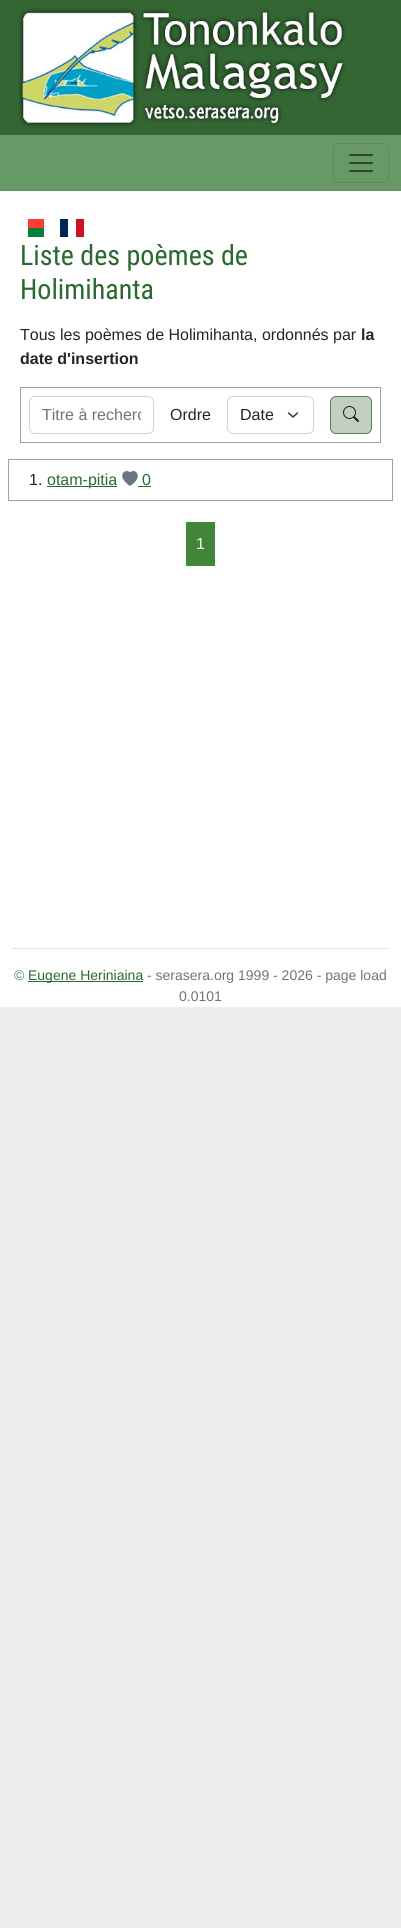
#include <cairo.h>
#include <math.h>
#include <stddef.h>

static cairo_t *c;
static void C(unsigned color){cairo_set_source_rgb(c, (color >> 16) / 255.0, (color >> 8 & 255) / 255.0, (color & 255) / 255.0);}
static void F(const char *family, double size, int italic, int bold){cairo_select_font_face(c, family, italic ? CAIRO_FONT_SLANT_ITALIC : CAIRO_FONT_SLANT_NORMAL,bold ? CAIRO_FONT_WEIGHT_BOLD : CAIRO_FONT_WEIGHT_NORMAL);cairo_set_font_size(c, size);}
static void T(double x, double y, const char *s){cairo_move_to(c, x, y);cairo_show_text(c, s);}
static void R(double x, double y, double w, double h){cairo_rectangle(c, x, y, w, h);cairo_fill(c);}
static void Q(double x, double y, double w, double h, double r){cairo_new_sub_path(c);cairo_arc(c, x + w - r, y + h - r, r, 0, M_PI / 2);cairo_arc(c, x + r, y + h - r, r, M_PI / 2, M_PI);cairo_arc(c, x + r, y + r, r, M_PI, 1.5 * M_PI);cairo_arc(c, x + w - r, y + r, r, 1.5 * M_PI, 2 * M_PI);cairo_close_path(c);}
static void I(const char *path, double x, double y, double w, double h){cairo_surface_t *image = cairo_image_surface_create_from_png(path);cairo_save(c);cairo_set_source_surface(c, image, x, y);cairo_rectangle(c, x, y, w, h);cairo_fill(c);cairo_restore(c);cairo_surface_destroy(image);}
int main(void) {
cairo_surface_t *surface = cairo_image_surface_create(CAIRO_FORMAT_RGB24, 401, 1928);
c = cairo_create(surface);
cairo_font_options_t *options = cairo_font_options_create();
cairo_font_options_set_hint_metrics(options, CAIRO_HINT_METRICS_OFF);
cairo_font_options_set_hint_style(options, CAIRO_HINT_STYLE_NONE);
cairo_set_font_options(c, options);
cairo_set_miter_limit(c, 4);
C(0xeeeeee);
cairo_paint(c);
C(0x336633);
R(0,0,401,135);
I("1.png",17,8,330,120);
C(0x669966);
R(0,135,401,56);
Q(333.5,143.5,55,39,5.5);
C(0x5c8a5c);
cairo_set_line_width(c,1);
cairo_stroke(c);
I("2.png",349,154,24,18);
C(0xffffff);
R(0,191,401,816);
C(0xfc3d32);
R(28,219,16,9);
C(0x007e3a);
R(28,228,16,9);
C(0x002654);
R(60,219,8,18);
C(0xce1126);
R(76,219,8,18);
F("Roboto Condensed",28,0,0);
C(0x2b6930);
T(20,265,"Liste des poèmes de");
T(20,299,"Holimihanta");
F("Liberation Sans",16,0,0);
C(0x212529);
T(20,340,"Tous les poèmes de Holimihanta, ordonnés par");
F("Liberation Sans",16,0,1);
T(361,340,"la");
T(20,364,"date d'insertion");
cairo_rectangle(c,20.5,387.5,360,55);
C(0x97a797);
cairo_stroke(c);
Q(29.5,396.5,124,37,5.5);
C(0xced4da);
cairo_stroke(c);
cairo_save(c);
cairo_rectangle(c,42,406,99,18);
cairo_clip(c);
F("Liberation Sans",16,0,0);
C(0x6c757d);
T(42,420,"Titre à recherc");
cairo_restore(c);
F("Liberation Sans",16,0,0);
C(0x212529);
T(170,420,"Ordre");
cairo_new_path(c);
cairo_move_to(c,288.5,413);
cairo_line_to(c,293,417);
cairo_line_to(c,297.5,413);
C(0x343a40);
cairo_set_line_width(c,1.5);
cairo_set_line_cap(c,CAIRO_LINE_CAP_ROUND);
cairo_set_line_join(c,CAIRO_LINE_JOIN_ROUND);
cairo_stroke(c);
Q(227.5,396.5,86,37,5.5);
C(0xced4da);
cairo_set_line_width(c,1);
cairo_set_line_cap(c,CAIRO_LINE_CAP_BUTT);
cairo_set_line_join(c,CAIRO_LINE_JOIN_MITER);
cairo_stroke(c);
C(0x212529);
T(240,420,"Date");
C(0xc3cfc3);
Q(330.5,396.5,41,37,5.5);
cairo_fill_preserve(c);
C(0x538153);
cairo_stroke(c);
I("3.png",343,406,16,16);
cairo_rectangle(c,8.5,459.5,384,41);
C(0x97a797);
cairo_stroke(c);
C(0x212529);
T(29,485,"1.");
C(0x2b6930);
R(47,486,70,1);
T(47,485,"otam-pitia");
C(0x6c757d);
cairo_new_path(c);
cairo_move_to(c,130,472.5);
cairo_curve_to(c,134.5,467.5,145,476,130,486);
cairo_curve_to(c,115,476,125.5,467.5,130,472.5);
cairo_close_path(c);
cairo_fill(c);
C(0x2b6930);
T(142,485,"0");
R(138,486,13,1);
C(0x418638);
R(186,522,29,44);
C(0xffffff);
T(196,549,"1");
C(0xdee2e6);
R(12,948,377,1);
F("Liberation Sans",14,0,0);
C(0x6c757d);
T(14,980,"©");
C(0x2b6930);
R(28,981,115,1);
T(28,980,"Eugene Heriniaina");
C(0x6c757d);
T(147,980,"- serasera.org 1999 - 2026 - page load");
T(179,1001,"0.0101");
cairo_surface_write_to_png(surface, "o.png");
cairo_font_options_destroy(options);
cairo_destroy(c);
cairo_surface_destroy(surface);
return 0;
}
